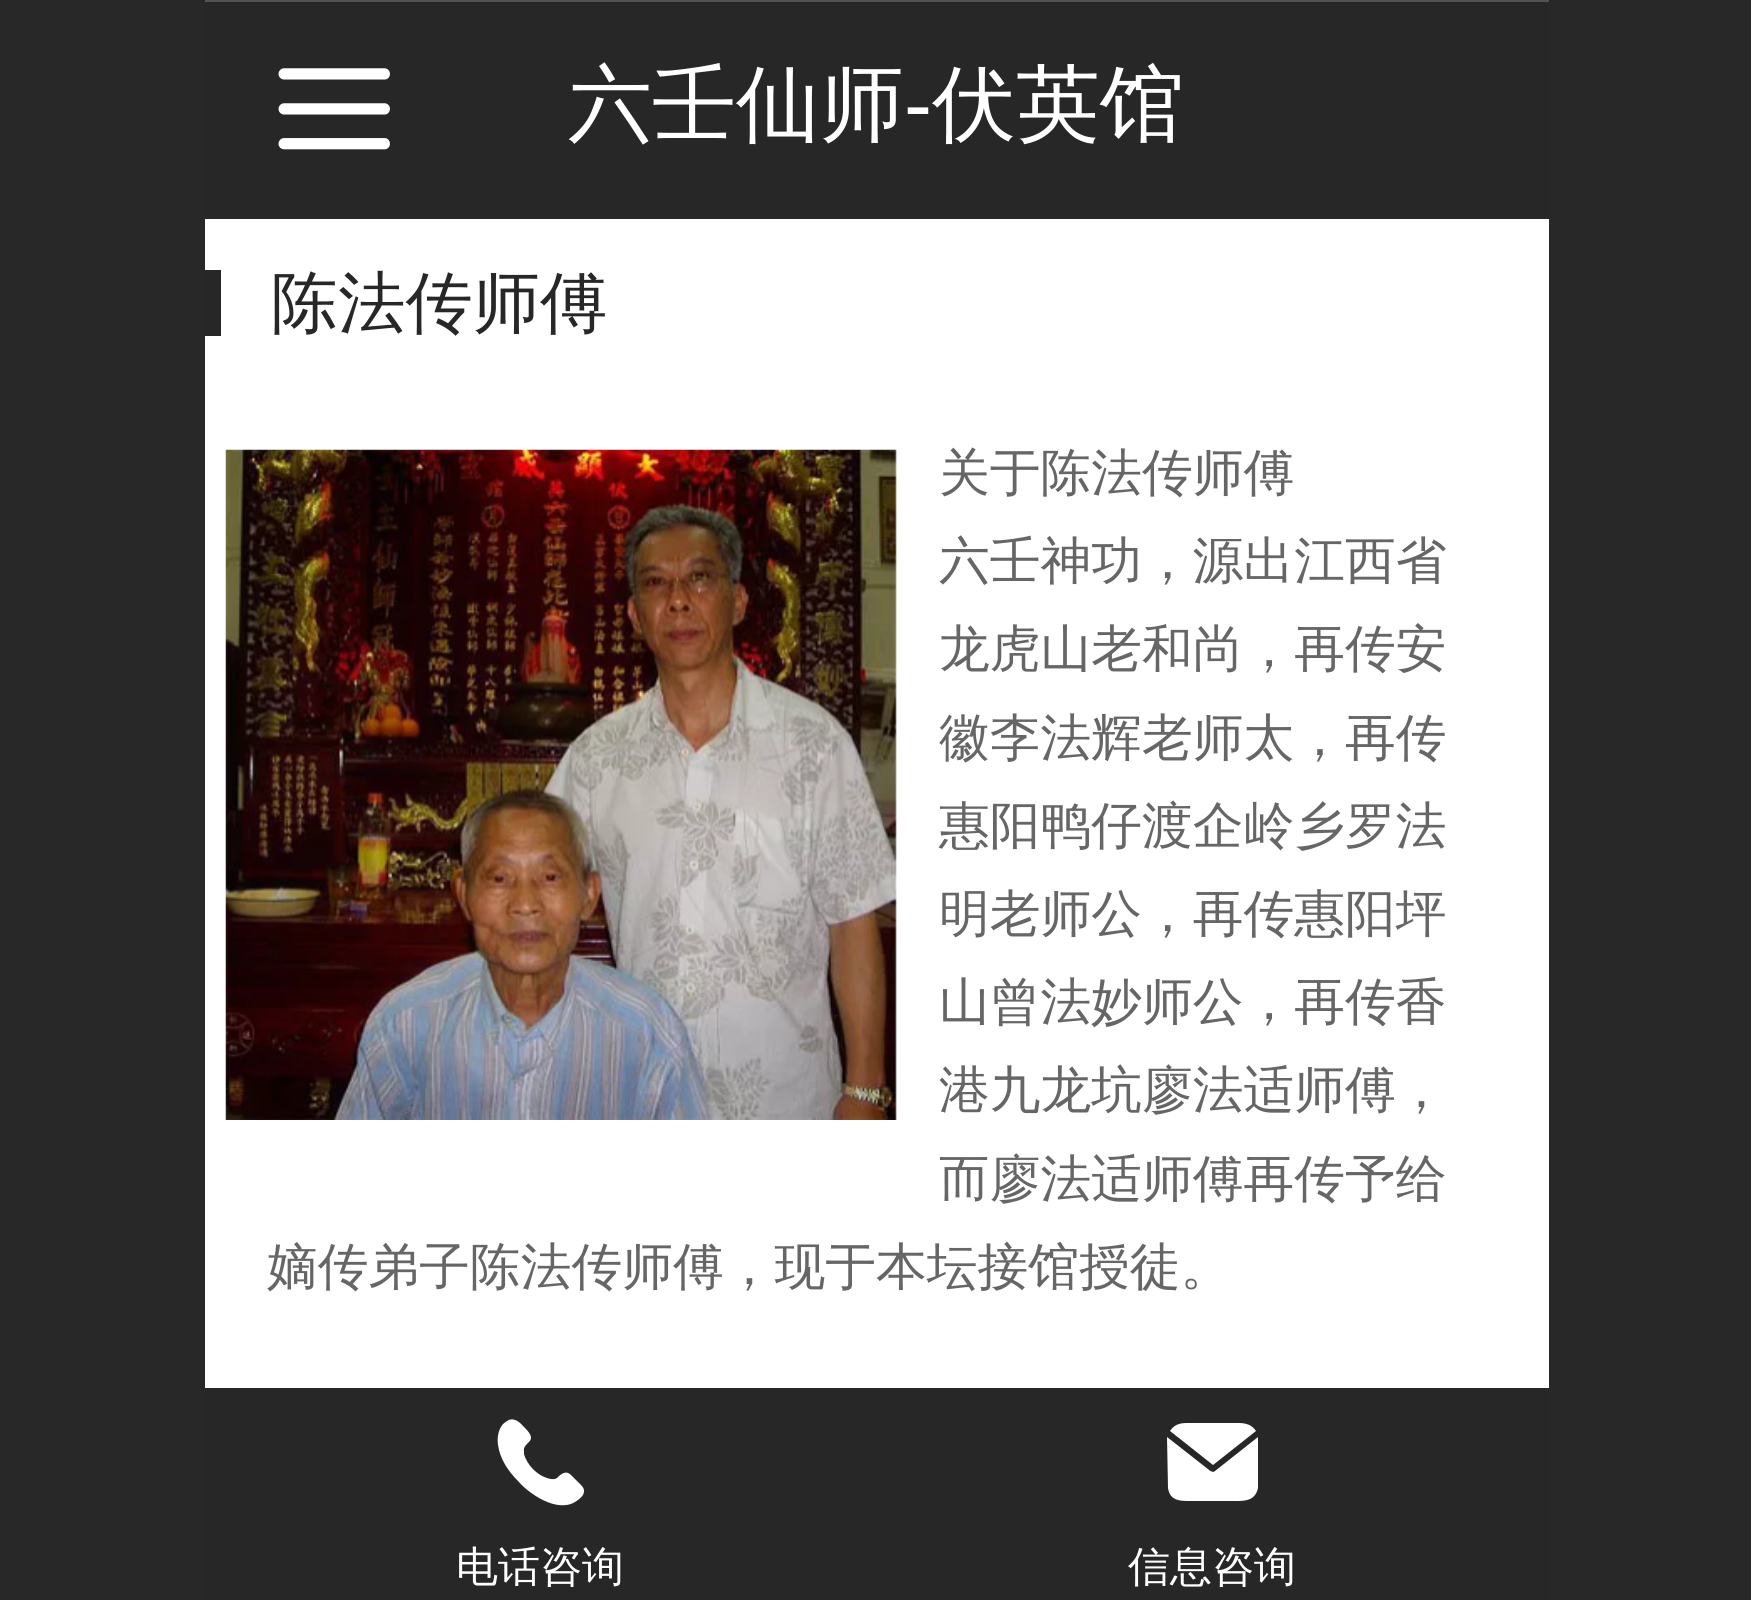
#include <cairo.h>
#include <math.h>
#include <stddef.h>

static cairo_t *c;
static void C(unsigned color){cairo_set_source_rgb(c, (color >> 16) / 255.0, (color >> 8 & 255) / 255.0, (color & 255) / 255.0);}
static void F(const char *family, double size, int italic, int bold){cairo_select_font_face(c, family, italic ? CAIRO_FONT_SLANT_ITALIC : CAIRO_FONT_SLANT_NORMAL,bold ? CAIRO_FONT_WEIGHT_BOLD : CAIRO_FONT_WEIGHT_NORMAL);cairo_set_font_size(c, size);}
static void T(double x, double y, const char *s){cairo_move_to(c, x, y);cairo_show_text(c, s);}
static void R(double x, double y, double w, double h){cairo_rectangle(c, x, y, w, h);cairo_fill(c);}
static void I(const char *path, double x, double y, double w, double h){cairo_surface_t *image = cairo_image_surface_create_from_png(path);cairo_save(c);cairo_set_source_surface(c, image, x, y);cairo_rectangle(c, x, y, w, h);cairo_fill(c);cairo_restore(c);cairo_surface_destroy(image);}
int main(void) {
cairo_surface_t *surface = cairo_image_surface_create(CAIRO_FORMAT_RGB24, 1751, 1600);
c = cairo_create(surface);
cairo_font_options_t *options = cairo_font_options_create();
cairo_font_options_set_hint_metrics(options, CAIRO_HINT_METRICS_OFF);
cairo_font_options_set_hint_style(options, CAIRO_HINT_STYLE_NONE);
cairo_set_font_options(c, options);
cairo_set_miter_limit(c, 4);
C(0xffffff);
cairo_paint(c);
C(0x282828);
R(0,0,205,1600);
C(0x272727);
R(205,2,1344,217);
I("1.png",278,68,112,82);
C(0x525252);
R(205,0,1344,2);
F("WenQuanYi Zen Hei Medium",84,0,0);
C(0xffffff);
T(568,133,"六壬仙师");
F("Liberation Sans",84,0,0);
T(904,133,"-");
F("WenQuanYi Zen Hei Medium",84,0,0);
T(932,133,"伏英馆");
C(0x272727);
R(205,270,16,66);
F("WenQuanYi Zen Hei Medium",67.25,0,0);
T(271,326,"陈法传师傅");
F("WenQuanYi Zen Hei Medium",50.75,0,0);
C(0x666666);
T(939,490,"关于陈法传师傅");
T(939,578,"六壬神功，源出江西省");
T(939,666,"龙虎山老和尚，再传安");
T(939,755,"徽李法辉老师太，再传");
T(939,843,"惠阳鸭仔渡企岭乡罗法");
T(939,931,"明老师公，再传惠阳坪");
T(939,1019,"山曾法妙师公，再传香");
T(939,1107,"港九龙坑廖法适师傅，");
T(939,1196,"而廖法适师傅再传予给");
T(267,1284,"嫡传弟子陈法传师傅，现于本坛接馆授徒。");
I("2.png",225,449,672,671);
C(0x272727);
R(205,1388,1344,212);
C(0xffffff);
cairo_new_path(c);
cairo_move_to(c,581,1485);
cairo_line_to(c,573,1477);
cairo_curve_to(c,567,1470,563,1472,557,1478);
cairo_curve_to(c,554,1480,550,1479,547,1478);
cairo_curve_to(c,537,1475,527,1465,524,1454);
cairo_line_to(c,524,1452);
cairo_curve_to(c,522,1441,540,1443,525,1428);
cairo_curve_to(c,522,1425,519,1421,515,1420);
cairo_curve_to(c,510,1418,507,1421,503,1424);
cairo_curve_to(c,498,1430,497,1438,498,1445);
cairo_curve_to(c,500,1459,508,1471,518,1481);
cairo_curve_to(c,529,1494,557,1513,575,1502);
cairo_curve_to(c,578,1500,581,1498,583,1495);
cairo_curve_to(c,585,1491,584,1488,581,1485);
cairo_close_path(c);
cairo_fill(c);
F("WenQuanYi Zen Hei Medium",42,0,0);
T(456,1581,"电话咨询");
cairo_new_path(c);
cairo_move_to(c,1213,1465);
cairo_line_to(c,1256,1431);
cairo_curve_to(c,1250,1422,1241,1423,1232,1423);
cairo_line_to(c,1193,1423);
cairo_curve_to(c,1184,1423,1176,1422,1170,1431);
cairo_close_path(c);
cairo_move_to(c,1215,1471);
cairo_curve_to(c,1212,1474,1207,1468,1204,1466);
cairo_line_to(c,1167,1437);
cairo_line_to(c,1168,1488);
cairo_curve_to(c,1170,1502,1182,1501,1193,1501);
cairo_line_to(c,1232,1501);
cairo_curve_to(c,1243,1501,1255,1502,1258,1488);
cairo_line_to(c,1258,1437);
cairo_close_path(c);
cairo_fill(c);
T(1128,1581,"信息咨询");
C(0x282828);
R(1549,0,202,1600);
cairo_surface_write_to_png(surface, "o.png");
cairo_font_options_destroy(options);
cairo_destroy(c);
cairo_surface_destroy(surface);
return 0;
}
